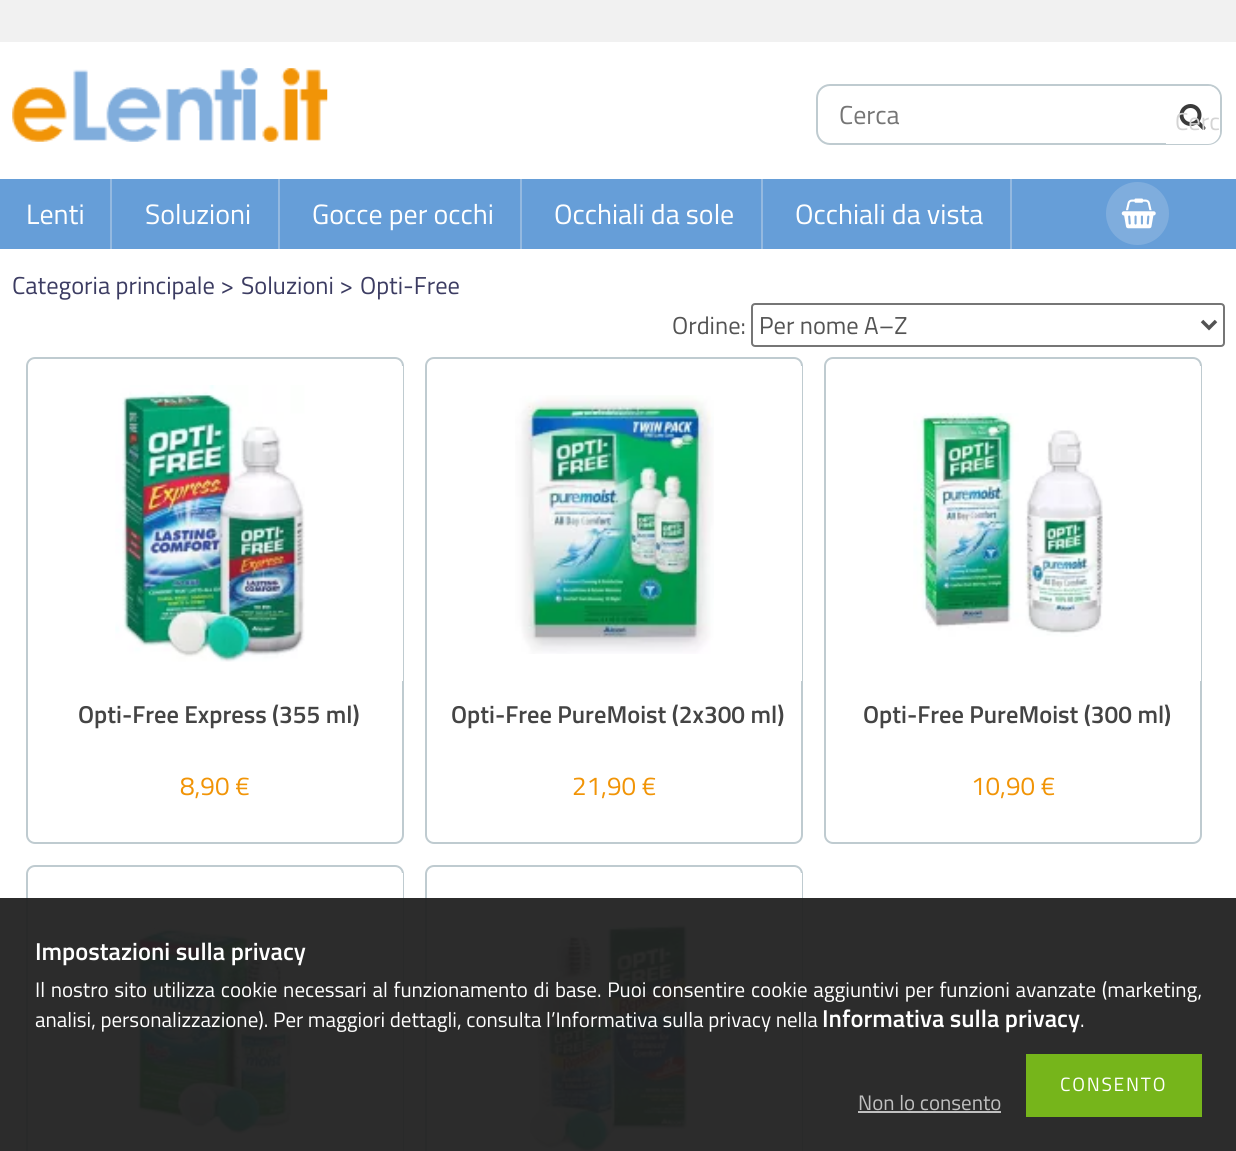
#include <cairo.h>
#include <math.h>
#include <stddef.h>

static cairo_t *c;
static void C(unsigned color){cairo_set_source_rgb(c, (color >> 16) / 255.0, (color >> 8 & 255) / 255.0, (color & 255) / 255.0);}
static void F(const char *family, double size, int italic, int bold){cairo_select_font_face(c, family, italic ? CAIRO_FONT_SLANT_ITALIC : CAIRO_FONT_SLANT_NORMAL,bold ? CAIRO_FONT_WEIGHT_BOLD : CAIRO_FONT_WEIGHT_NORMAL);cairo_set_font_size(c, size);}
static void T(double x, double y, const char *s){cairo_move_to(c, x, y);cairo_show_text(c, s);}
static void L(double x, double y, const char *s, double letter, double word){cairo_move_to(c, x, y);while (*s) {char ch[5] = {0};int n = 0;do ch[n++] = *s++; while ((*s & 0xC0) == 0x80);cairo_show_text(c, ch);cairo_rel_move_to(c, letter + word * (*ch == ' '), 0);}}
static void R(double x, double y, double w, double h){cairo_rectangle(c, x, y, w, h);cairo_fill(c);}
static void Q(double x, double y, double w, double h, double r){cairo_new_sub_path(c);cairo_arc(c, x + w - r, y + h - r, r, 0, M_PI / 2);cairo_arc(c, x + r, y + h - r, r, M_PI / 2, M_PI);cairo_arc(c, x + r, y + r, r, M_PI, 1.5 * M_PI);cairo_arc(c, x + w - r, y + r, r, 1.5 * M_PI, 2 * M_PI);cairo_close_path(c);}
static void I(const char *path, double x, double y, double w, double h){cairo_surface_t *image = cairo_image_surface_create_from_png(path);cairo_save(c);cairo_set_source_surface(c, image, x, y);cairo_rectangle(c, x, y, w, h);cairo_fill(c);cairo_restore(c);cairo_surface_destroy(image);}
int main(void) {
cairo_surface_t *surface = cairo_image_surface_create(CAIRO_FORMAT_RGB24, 1236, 1151);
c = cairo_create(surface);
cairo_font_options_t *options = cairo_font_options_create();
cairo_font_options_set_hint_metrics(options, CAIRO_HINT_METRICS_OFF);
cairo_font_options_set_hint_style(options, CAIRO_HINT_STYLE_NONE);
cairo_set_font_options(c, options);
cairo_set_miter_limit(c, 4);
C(0xffffff);
cairo_paint(c);
C(0xf1f1f1);
R(0,0,1236,42);
I("1.png",12,68,316,74);
Q(817,85,404,59,13);
C(0xbfcbd0);
cairo_stroke(c);
F("Titillium Web",26,0,0);
C(0x757575);
T(839,124,"Cerca");
C(0xffffff);
cairo_new_path(c);
cairo_move_to(c,1166,86);
cairo_line_to(c,1208,86);
cairo_curve_to(c,1214.5,86,1220,91.5,1220,98);
cairo_line_to(c,1220,132);
cairo_curve_to(c,1220,138.5,1214.5,144,1208,144);
cairo_line_to(c,1166,144);
cairo_close_path(c);
cairo_fill(c);
I("2.png",1179,104,27,26);
F("Titillium Web",24.5,0,0);
C(0xd4d4d4);
T(1175,130,"Cerc");
C(0x669ed8);
R(0,179,1236,70);
F("Titillium Web",28,0,0);
C(0xffffff);
T(26,224,"Lenti");
C(0x94b9e0);
R(110,179,2,70);
C(0xffffff);
T(145,224,"Soluzioni");
C(0x94b9e0);
R(278,179,2,70);
C(0xffffff);
T(312,224,"Gocce per occhi");
C(0x94b9e0);
R(520,179,2,70);
C(0xffffff);
T(554,224,"Occhiali da sole");
C(0x94b9e0);
R(761,179,2,70);
C(0xffffff);
T(795,224,"Occhiali da vista");
C(0x94b9e0);
R(1010,179,2,70);
C(0x7faddd);
cairo_new_path(c);
cairo_arc(c,1137.5,213.5,30.5,0,2 * M_PI);
cairo_fill_preserve(c);
cairo_stroke(c);
I("3.png",1121,198,35,31);
F("Titillium Web",24.5,0,0);
C(0x3c3c62);
T(12,294,"Categoria principale >");
T(241,294,"Soluzioni >");
T(360,294,"Opti-Free");
C(0x535353);
T(672,334,"Ordine:");
Q(752,304,472,42,3);
C(0x767676);
cairo_stroke(c);
cairo_new_path(c);
cairo_move_to(c,1202,321);
cairo_line_to(c,1209,328);
cairo_line_to(c,1216,321);
C(0x535353);
cairo_set_line_width(c,3.5);
cairo_stroke(c);
T(759,334,"Per nome A–Z");
Q(27,358,376,485,8);
C(0xbfcbd0);
cairo_set_line_width(c,2);
cairo_stroke(c);
C(0xffffff);
R(402,366,1,315);
I("4.png",115,385,190,277);
F("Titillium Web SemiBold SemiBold",24.5,0,0);
C(0x444444);
T(78,723,"Opti-Free Express (355 ml)");
F("Titillium Web",26,0,0);
C(0xf19406);
T(180,795,"8,90 €");
Q(426,358,376,485,8);
C(0xbfcbd0);
cairo_stroke(c);
C(0xffffff);
R(801,366,1,315);
I("5.png",515,395,199,259);
F("Titillium Web SemiBold SemiBold",24.5,0,0);
C(0x444444);
T(451,723,"Opti-Free PureMoist (2x300 ml)");
F("Titillium Web",26,0,0);
C(0xf19406);
T(572,795,"21,90 €");
Q(825,358,376,485,8);
C(0xbfcbd0);
cairo_stroke(c);
C(0xffffff);
R(1200,366,1,315);
I("6.png",913,413,190,224);
F("Titillium Web SemiBold SemiBold",24.5,0,0);
C(0x444444);
T(863,723,"Opti-Free PureMoist (300 ml)");
F("Titillium Web",26,0,0);
C(0xf19406);
T(971,795,"10,90 €");
Q(27,866,376,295,8);
C(0xbfcbd0);
cairo_stroke(c);
C(0xffffff);
R(28,873,375,278);
I("7.png",130,921,168,216);
Q(426,866,376,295,8);
C(0xbfcbd0);
cairo_stroke(c);
C(0xffffff);
R(427,873,375,278);
I("8.png",528,921,169,230);
cairo_set_source_rgba(c,0.133,0.133,0.133,0.95);
R(0,898,1236,253);
F("Titillium Web SemiBold SemiBold",24.5,0,0);
C(0xffffff);
T(35,960,"Impostazioni sulla privacy");
F("Titillium Web",21,0,0);
L(35,997,"Il nostro sito utilizza cookie necessari al funzionamento di base. Puoi consentire cookie aggiuntivi per funzioni avanzate (marketing,",0,1.1);
T(35,1027,"analisi, personalizzazione). Per maggiori dettagli, consulta l’Informativa sulla privacy nella");
F("Titillium Web SemiBold SemiBold",24.5,0,0);
T(822,1027,"Informativa sulla privacy");
F("Titillium Web",21,0,0);
T(1080,1027,".");
C(0x76b51b);
R(1026,1054,176,63);
F("Titillium Web",19.25,0,0);
C(0xffffff);
L(1060,1091,"CONSENTO",1.75,0);
F("Titillium Web",21,0,0);
C(0xc0c0c0);
T(858,1110,"Non lo consento");
R(858,1111,143,2);
cairo_surface_write_to_png(surface, "o.png");
cairo_font_options_destroy(options);
cairo_destroy(c);
cairo_surface_destroy(surface);
return 0;
}
